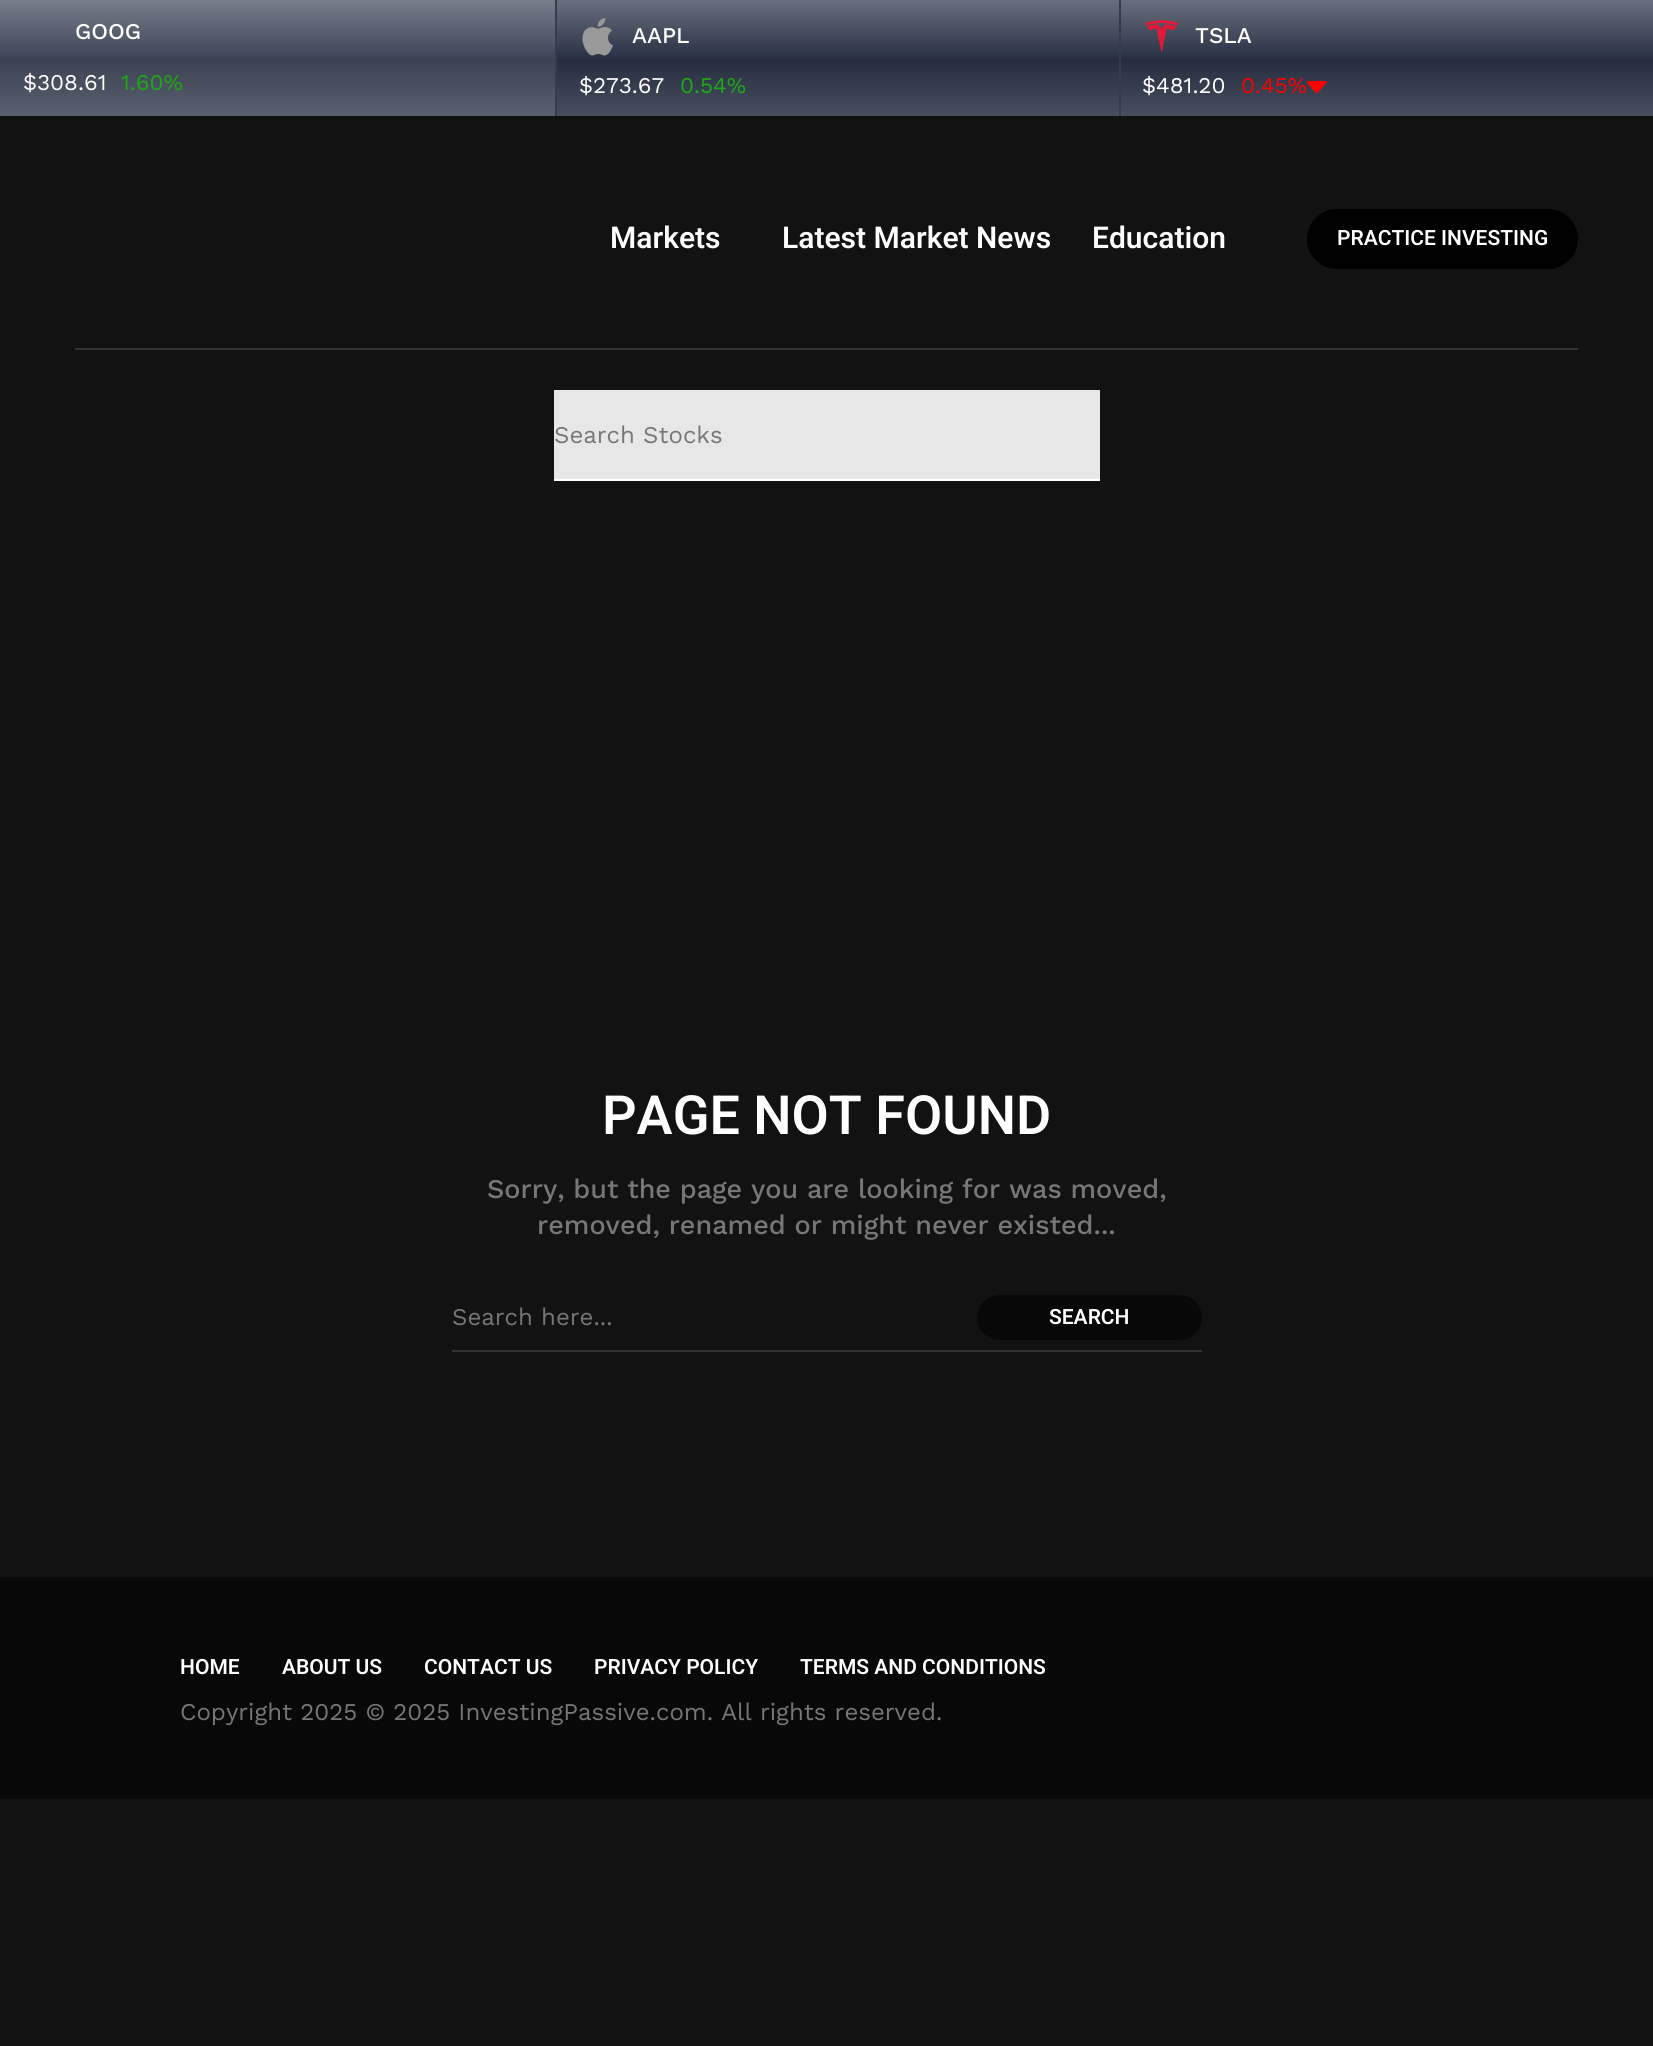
#include <cairo.h>
#include <math.h>
#include <stddef.h>

static cairo_t *c;
static void C(unsigned color){cairo_set_source_rgb(c, (color >> 16) / 255.0, (color >> 8 & 255) / 255.0, (color & 255) / 255.0);}
static void F(const char *family, double size, int italic, int bold){cairo_select_font_face(c, family, italic ? CAIRO_FONT_SLANT_ITALIC : CAIRO_FONT_SLANT_NORMAL,bold ? CAIRO_FONT_WEIGHT_BOLD : CAIRO_FONT_WEIGHT_NORMAL);cairo_set_font_size(c, size);}
static void T(double x, double y, const char *s){cairo_move_to(c, x, y);cairo_show_text(c, s);}
static void R(double x, double y, double w, double h){cairo_rectangle(c, x, y, w, h);cairo_fill(c);}
static void Q(double x, double y, double w, double h, double r){cairo_new_sub_path(c);cairo_arc(c, x + w - r, y + h - r, r, 0, M_PI / 2);cairo_arc(c, x + r, y + h - r, r, M_PI / 2, M_PI);cairo_arc(c, x + r, y + r, r, M_PI, 1.5 * M_PI);cairo_arc(c, x + w - r, y + r, r, 1.5 * M_PI, 2 * M_PI);cairo_close_path(c);}
static void I(const char *path, double x, double y, double w, double h){cairo_surface_t *image = cairo_image_surface_create_from_png(path);cairo_save(c);cairo_set_source_surface(c, image, x, y);cairo_rectangle(c, x, y, w, h);cairo_fill(c);cairo_restore(c);cairo_surface_destroy(image);}
int main(void) {
cairo_surface_t *surface = cairo_image_surface_create(CAIRO_FORMAT_RGB24, 1653, 2046);
c = cairo_create(surface);
cairo_font_options_t *options = cairo_font_options_create();
cairo_font_options_set_hint_metrics(options, CAIRO_HINT_METRICS_OFF);
cairo_font_options_set_hint_style(options, CAIRO_HINT_STYLE_NONE);
cairo_set_font_options(c, options);
cairo_set_miter_limit(c, 4);
cairo_pattern_t *gradient;
C(0x121212);
cairo_paint(c);
gradient = cairo_pattern_create_linear(827,0,827,116);
cairo_pattern_add_color_stop_rgba(gradient,0,0.412,0.435,0.49,1);
cairo_pattern_add_color_stop_rgba(gradient,.5,0.161,0.192,0.271,1);
cairo_pattern_add_color_stop_rgba(gradient,.51,0.149,0.176,0.247,1);
cairo_pattern_add_color_stop_rgba(gradient,1,0.278,0.306,0.373,1);
cairo_set_source(c,gradient);
cairo_pattern_destroy(gradient);
R(557,0,1096,116);
gradient = cairo_pattern_create_linear(827,0,827,116);
cairo_pattern_add_color_stop_rgba(gradient,0,0.471,0.49,0.541,1);
cairo_pattern_add_color_stop_rgba(gradient,.5,0.243,0.275,0.345,1);
cairo_pattern_add_color_stop_rgba(gradient,.51,0.235,0.259,0.322,1);
cairo_pattern_add_color_stop_rgba(gradient,1,0.349,0.376,0.435,1);
cairo_set_source(c,gradient);
cairo_pattern_destroy(gradient);
R(0,0,555,116);
C(0x363c4e);
R(555,0,2,116);
F("Work Sans Medium",22.5,0,0);
C(0xffffff);
T(75,39,"GOOG");
F("Work Sans",22.5,0,0);
T(23,90,"$308.61");
C(0x1ca913);
T(121,90,"1.60%");
C(0x363c4e);
R(1119,0,2,116);
I("1.png",582,18,31,38);
F("Work Sans Medium",22.5,0,0);
C(0xffffff);
T(632,43,"AAPL");
F("Work Sans",22.5,0,0);
T(579,93,"$273.67");
C(0x1ca913);
T(680,93,"0.54%");
I("2.png",1145,20,34,33);
F("Work Sans Medium",22.5,0,0);
C(0xffffff);
T(1195,43,"TSLA");
F("Work Sans",22.5,0,0);
T(1142,93,"$481.20");
C(0xff0000);
T(1241,93,"0.45%");
I("3.png",1307,81,20,12);
C(0x333333);
R(75,348,1503,2);
F("Heebo SemiBold",30,0,0);
C(0xffffff);
T(610,248,"Markets");
T(782,248,"Latest Market News");
T(1092,248,"Education");
C(0x000000);
Q(1307,209,271,60,30);
cairo_fill(c);
F("Heebo SemiBold",21,0,0);
C(0xffffff);
T(1337,245,"PRACTICE INVESTING");
C(0xe7e7e7);
R(554,390,546,89);
C(0xffffff);
R(554,479,546,2);
F("Work Sans",24,0,0);
C(0x777777);
T(554,443,"Search Stocks");
F("Heebo SemiBold",54,0,0);
C(0xffffff);
T(602,1134,"PAGE NOT FOUND");
F("Work Sans Medium",27,0,0);
C(0x777777);
T(487,1198,"Sorry, but the page you are looking for was moved,");
T(537,1234,"removed, renamed or might never existed...");
C(0x333333);
R(452,1350,750,2);
F("Work Sans",24,0,0);
C(0x777777);
T(452,1325,"Search here...");
C(0x080808);
Q(977,1295,225,45,22.5);
cairo_fill(c);
F("Heebo SemiBold",21,0,0);
C(0xffffff);
T(1049,1324,"SEARCH");
C(0x080808);
R(0,1577,1653,222);
C(0xffffff);
T(180,1674,"HOME");
T(282,1674,"ABOUT US");
T(424,1674,"CONTACT US");
T(594,1674,"PRIVACY POLICY");
T(800,1674,"TERMS AND CONDITIONS");
F("Work Sans",24,0,0);
C(0x777777);
T(180,1720,"Copyright 2025 © 2025 InvestingPassive.com. All rights reserved.");
cairo_surface_write_to_png(surface, "o.png");
cairo_font_options_destroy(options);
cairo_destroy(c);
cairo_surface_destroy(surface);
return 0;
}
